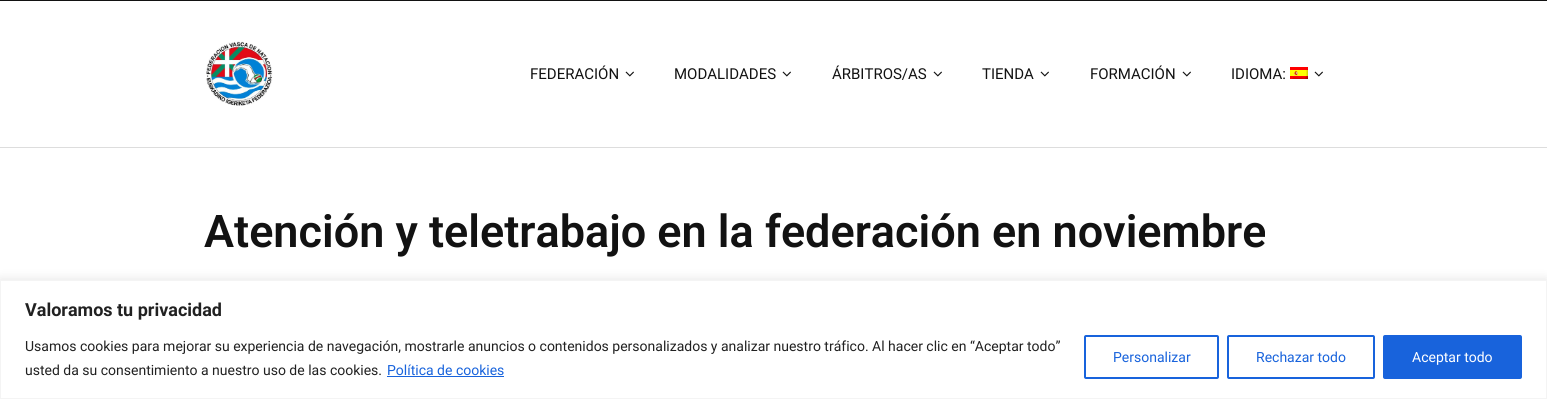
#include <cairo.h>
#include <math.h>
#include <stddef.h>

static cairo_t *c;
static void C(unsigned color){cairo_set_source_rgb(c, (color >> 16) / 255.0, (color >> 8 & 255) / 255.0, (color & 255) / 255.0);}
static void F(const char *family, double size, int italic, int bold){cairo_select_font_face(c, family, italic ? CAIRO_FONT_SLANT_ITALIC : CAIRO_FONT_SLANT_NORMAL,bold ? CAIRO_FONT_WEIGHT_BOLD : CAIRO_FONT_WEIGHT_NORMAL);cairo_set_font_size(c, size);}
static void T(double x, double y, const char *s){cairo_move_to(c, x, y);cairo_show_text(c, s);}
static void R(double x, double y, double w, double h){cairo_rectangle(c, x, y, w, h);cairo_fill(c);}
static void Q(double x, double y, double w, double h, double r){cairo_new_sub_path(c);cairo_arc(c, x + w - r, y + h - r, r, 0, M_PI / 2);cairo_arc(c, x + r, y + h - r, r, M_PI / 2, M_PI);cairo_arc(c, x + r, y + r, r, M_PI, 1.5 * M_PI);cairo_arc(c, x + w - r, y + r, r, 1.5 * M_PI, 2 * M_PI);cairo_close_path(c);}
static void S(double x, double y, double w, double h, double r, double blur, double alpha){cairo_push_group_with_content(c, CAIRO_CONTENT_ALPHA);cairo_set_operator(c, CAIRO_OPERATOR_SOURCE);for (int i = 15; i >= -15 && fmin(w, h) + blur * i / 3 > 0; i -= 2) {double e = blur * i / 6;cairo_set_source_rgba(c, 0, 0, 0, alpha * erfc((i - 1) / 8.5) / 2);Q(x - e, y - e, w + 2 * e, h + 2 * e, fmax(0, fmin(r + e + blur * .6, fmin(w, h) / 2 + e)));cairo_fill(c);}cairo_pattern_t *soft = cairo_pop_group(c);cairo_mask(c, soft);cairo_pattern_destroy(soft);}
static void I(const char *path, double x, double y, double w, double h){cairo_surface_t *image = cairo_image_surface_create_from_png(path);cairo_save(c);cairo_set_source_surface(c, image, x, y);cairo_rectangle(c, x, y, w, h);cairo_fill(c);cairo_restore(c);cairo_surface_destroy(image);}
int main(void) {
cairo_surface_t *surface = cairo_image_surface_create(CAIRO_FORMAT_RGB24, 1547, 399);
c = cairo_create(surface);
cairo_font_options_t *options = cairo_font_options_create();
cairo_font_options_set_hint_metrics(options, CAIRO_HINT_METRICS_OFF);
cairo_font_options_set_hint_style(options, CAIRO_HINT_STYLE_NONE);
cairo_set_font_options(c, options);
cairo_set_miter_limit(c, 4);
C(0xffffff);
cairo_paint(c);
C(0x121212);
R(0,0,1547,1);
C(0xdddddd);
R(0,147,1547,1);
I("1.png",206,41,67,65);
F("Roboto",15,0,0);
C(0x121212);
T(530,79,"FEDERACIÓN");
I("2.png",625,71,9,6);
T(674,79,"MODALIDADES");
I("2.png",782,71,9,6);
T(832,79,"ÁRBITROS/AS");
I("2.png",933,71,9,6);
T(982,79,"TIENDA");
I("2.png",1040,71,9,6);
T(1090,79,"FORMACIÓN");
I("2.png",1182,71,9,6);
T(1231,79,"IDIOMA:");
I("3.png",1290,67,18,12);
I("2.png",1314,71,9,6);
F("Roboto SemiBold",45,0,0);
T(204,247,"Atención y teletrabajo en la federación en noviembre");
C(0xacabab);
S(0,279,1547,119,0,5,.3);
C(0xffffff);
cairo_rectangle(c,.5,280.5,1546,118);
cairo_fill_preserve(c);
C(0xf4f4f4);
cairo_set_line_width(c,1);
cairo_stroke(c);
F("Roboto",18,0,1);
C(0x212121);
T(25,316,"Valoramos tu privacidad");
F("Roboto",14,0,0);
T(25,351,"Usamos cookies para mejorar su experiencia de navegación, mostrarle anuncios o contenidos personalizados y analizar nuestro tráfico. Al hacer clic en “Aceptar todo”");
T(25,375,"usted da su consentimiento a nuestro uso de las cookies.");
C(0x1863dc);
T(387,375,"Política de cookies");
R(387,376,117,1);
Q(1085,336,133,42,1);
cairo_set_line_width(c,2);
cairo_stroke(c);
T(1113,362,"Personalizar");
Q(1228,336,146,42,1);
cairo_stroke(c);
T(1256,362,"Rechazar todo");
Q(1384,336,137,42,1);
cairo_fill_preserve(c);
cairo_stroke(c);
C(0xffffff);
T(1412,362,"Aceptar todo");
cairo_surface_write_to_png(surface, "o.png");
cairo_font_options_destroy(options);
cairo_destroy(c);
cairo_surface_destroy(surface);
return 0;
}
